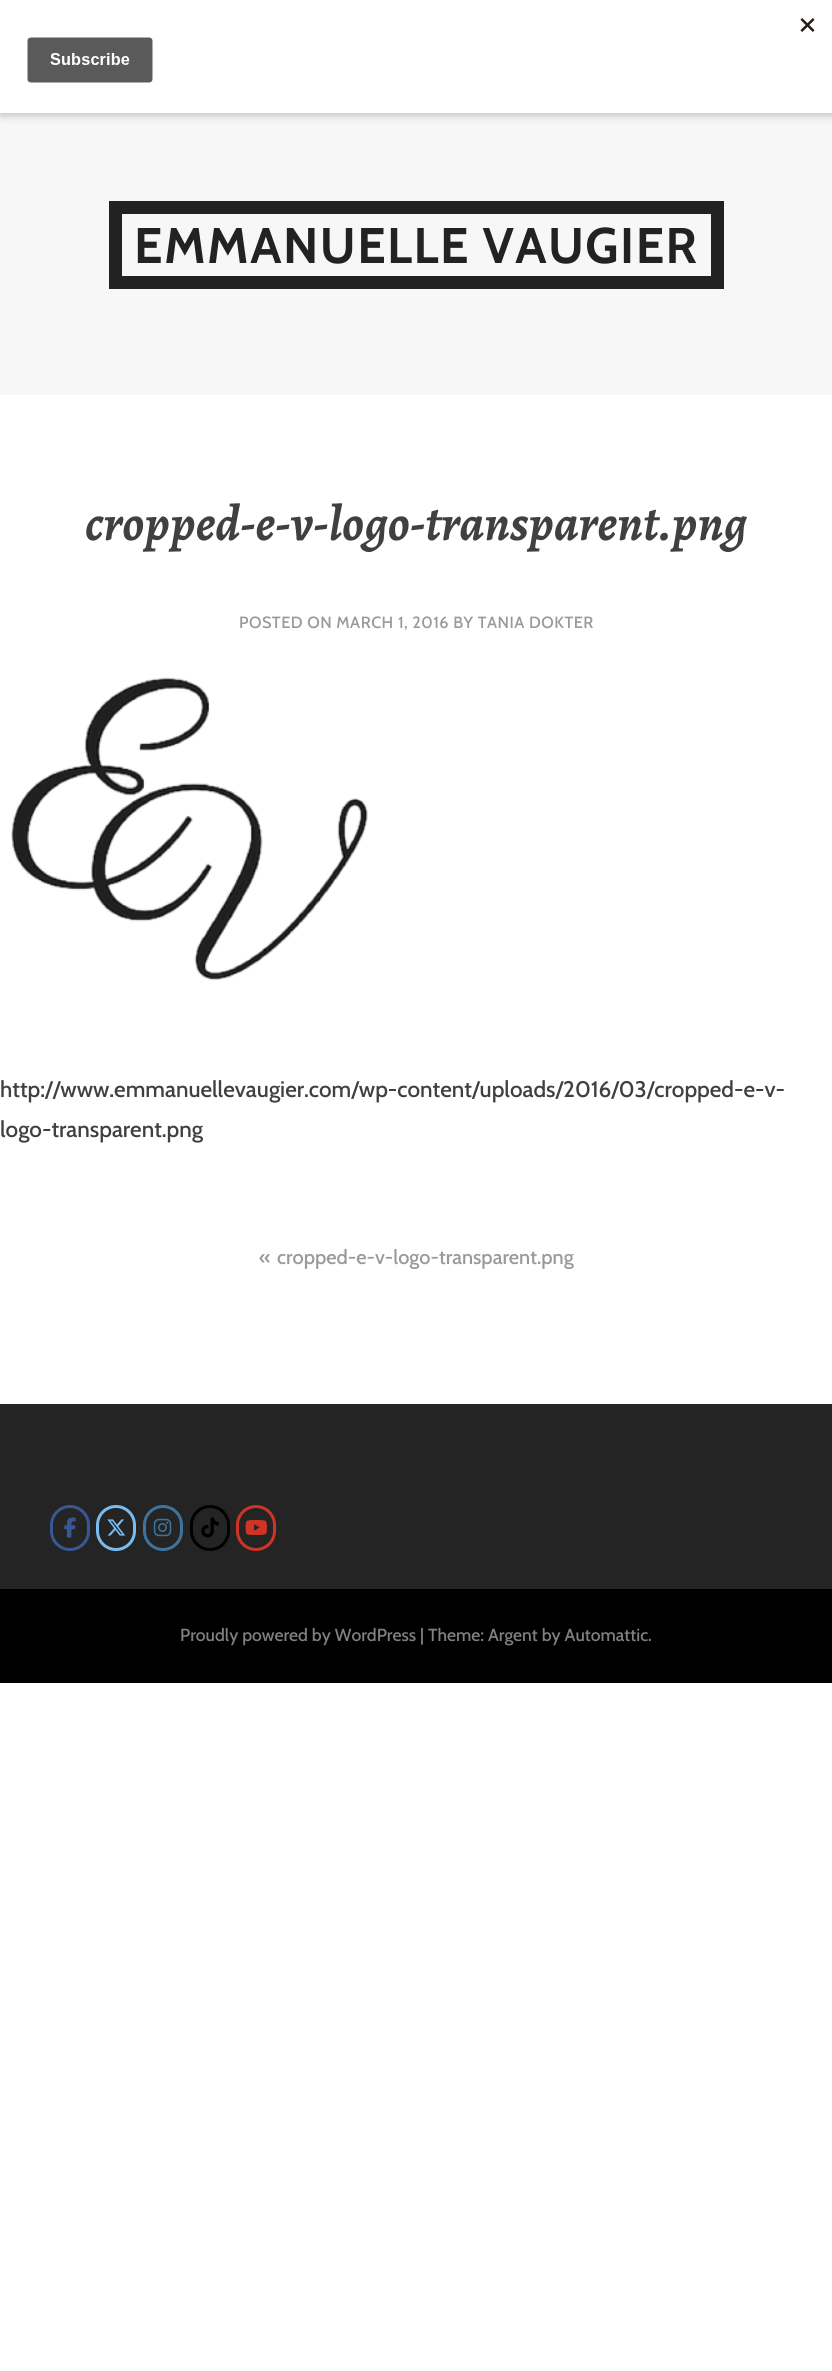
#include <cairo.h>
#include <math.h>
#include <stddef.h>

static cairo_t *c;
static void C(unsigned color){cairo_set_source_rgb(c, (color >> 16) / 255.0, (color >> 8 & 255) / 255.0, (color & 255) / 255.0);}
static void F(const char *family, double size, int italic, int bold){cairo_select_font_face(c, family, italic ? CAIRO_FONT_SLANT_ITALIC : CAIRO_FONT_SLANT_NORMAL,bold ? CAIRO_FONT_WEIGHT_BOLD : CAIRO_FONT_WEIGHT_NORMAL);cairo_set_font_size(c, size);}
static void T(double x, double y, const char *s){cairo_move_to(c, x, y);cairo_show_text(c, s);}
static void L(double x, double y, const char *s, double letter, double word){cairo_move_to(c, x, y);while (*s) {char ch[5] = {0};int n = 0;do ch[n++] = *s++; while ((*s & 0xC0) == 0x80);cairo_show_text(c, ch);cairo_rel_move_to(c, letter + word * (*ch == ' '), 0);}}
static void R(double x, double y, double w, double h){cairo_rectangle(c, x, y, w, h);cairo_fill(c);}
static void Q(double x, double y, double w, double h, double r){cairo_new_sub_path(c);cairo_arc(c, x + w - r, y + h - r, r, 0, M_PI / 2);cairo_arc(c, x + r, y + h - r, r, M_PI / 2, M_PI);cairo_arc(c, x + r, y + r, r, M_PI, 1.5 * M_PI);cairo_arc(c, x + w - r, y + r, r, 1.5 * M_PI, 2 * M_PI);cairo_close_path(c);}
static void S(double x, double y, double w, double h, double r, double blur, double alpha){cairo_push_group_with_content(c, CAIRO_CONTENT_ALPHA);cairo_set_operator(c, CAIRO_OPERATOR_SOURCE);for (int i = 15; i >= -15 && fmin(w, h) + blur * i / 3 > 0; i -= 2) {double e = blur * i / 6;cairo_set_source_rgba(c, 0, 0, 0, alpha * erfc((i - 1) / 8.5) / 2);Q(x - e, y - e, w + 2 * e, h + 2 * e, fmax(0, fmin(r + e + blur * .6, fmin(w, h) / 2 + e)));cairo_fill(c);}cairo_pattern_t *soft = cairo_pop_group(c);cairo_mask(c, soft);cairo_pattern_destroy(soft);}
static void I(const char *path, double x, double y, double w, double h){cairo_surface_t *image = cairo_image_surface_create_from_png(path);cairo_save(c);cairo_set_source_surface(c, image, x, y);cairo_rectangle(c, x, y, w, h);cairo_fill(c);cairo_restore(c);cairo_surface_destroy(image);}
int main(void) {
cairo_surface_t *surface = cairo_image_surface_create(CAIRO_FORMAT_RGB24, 832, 2371);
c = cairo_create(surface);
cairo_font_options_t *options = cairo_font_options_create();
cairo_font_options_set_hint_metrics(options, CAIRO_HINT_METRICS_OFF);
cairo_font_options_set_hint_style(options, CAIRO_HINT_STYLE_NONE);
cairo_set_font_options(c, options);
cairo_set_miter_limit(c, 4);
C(0xffffff);
cairo_paint(c);
C(0xf7f7f7);
R(0,113,832,282);
C(0x000000);
S(0,4,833,112,0,4,.2);
C(0xffffff);
R(0,0,832,113);
I("1.png",27,18,788,65);
cairo_rectangle(c,115.5,207.5,602,75);
C(0x222222);
cairo_set_line_width(c,13);
cairo_stroke(c);
F("Cabin",50,0,1);
L(134,263,"EMMANUELLE VAUGIER",1.5,0);
F("Alegreya",50,1,1);
C(0x404040);
T(85,540,"cropped-e-v-logo-transparent.png");
F("Cabin Medium",16.25,0,0);
C(0x999999);
L(239,628,"POSTED ON MARCH 1, 2016 BY TANIA DOKTER",.5,0);
I("2.png",11,677,357,304);
F("Cabin Medium",22.5,0,0);
C(0x404040);
T(0,1097,"http://www.emmanuellevaugier.com/wp-content/uploads/2016/03/cropped-e-v-");
T(0,1137,"logo-transparent.png");
F("Cabin Medium",20,0,0);
C(0x999999);
T(259,1264,"«");
T(277,1264,"cropped-e-v-logo-transparent.png");
C(0x242424);
R(0,1404,832,185);
Q(51.5,1506.5,37,43,18.5);
C(0x3a5795);
cairo_set_line_width(c,3);
cairo_stroke(c);
I("3.png",64,1517,12,21);
Q(97.5,1506.5,37,43,18.5);
C(0x78bdf1);
cairo_stroke(c);
I("4.png",107,1519,19,17);
Q(144.5,1506.5,37,43,18.5);
C(0x3d739c);
cairo_stroke(c);
I("5.png",153,1518,19,19);
Q(191.5,1506.5,37,43,18.5);
C(0x000000);
cairo_stroke(c);
I("6.png",201,1517,18,21);
Q(237.5,1506.5,37,43,18.5);
C(0xcf3427);
cairo_stroke(c);
I("7.png",245,1520,22,15);
C(0x000000);
R(0,1589,832,94);
F("Cabin Medium",17.5,0,0);
C(0x808080);
T(180,1641,"Proudly powered by WordPress | Theme: Argent by Automattic.");
cairo_surface_write_to_png(surface, "o.png");
cairo_font_options_destroy(options);
cairo_destroy(c);
cairo_surface_destroy(surface);
return 0;
}
